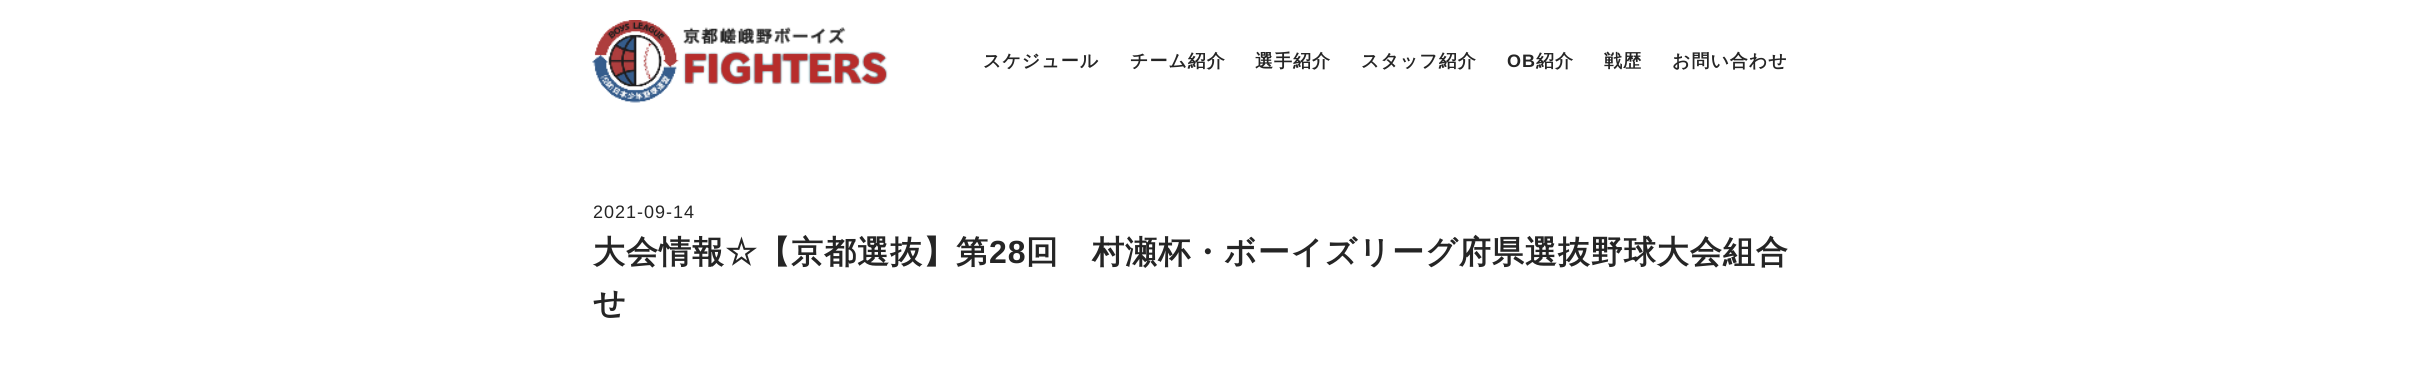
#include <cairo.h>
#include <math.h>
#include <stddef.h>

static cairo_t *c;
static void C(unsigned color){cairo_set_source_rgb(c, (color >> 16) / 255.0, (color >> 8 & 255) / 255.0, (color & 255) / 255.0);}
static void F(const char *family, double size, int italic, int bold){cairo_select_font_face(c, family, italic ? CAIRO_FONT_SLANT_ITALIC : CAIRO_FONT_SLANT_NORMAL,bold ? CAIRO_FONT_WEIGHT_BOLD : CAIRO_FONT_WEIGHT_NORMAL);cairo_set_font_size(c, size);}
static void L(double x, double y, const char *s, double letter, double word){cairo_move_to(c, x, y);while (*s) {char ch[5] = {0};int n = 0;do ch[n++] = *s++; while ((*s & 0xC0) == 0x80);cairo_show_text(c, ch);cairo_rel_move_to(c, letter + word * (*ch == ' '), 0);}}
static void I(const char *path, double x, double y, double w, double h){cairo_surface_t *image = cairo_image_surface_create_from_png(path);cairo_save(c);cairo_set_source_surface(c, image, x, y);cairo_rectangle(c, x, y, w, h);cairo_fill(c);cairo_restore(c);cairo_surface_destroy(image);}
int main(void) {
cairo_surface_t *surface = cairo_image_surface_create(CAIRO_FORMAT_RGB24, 2410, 383);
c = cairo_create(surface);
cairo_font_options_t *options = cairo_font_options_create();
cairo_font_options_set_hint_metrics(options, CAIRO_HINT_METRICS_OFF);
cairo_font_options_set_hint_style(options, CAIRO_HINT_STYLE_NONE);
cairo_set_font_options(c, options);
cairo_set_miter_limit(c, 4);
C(0xffffff);
cairo_paint(c);
I("1.png",592,20,296,83);
F("WenQuanYi Zen Hei",18,0,1);
C(0x252525);
L(983,67,"スケジュール",1,0);
L(1130,67,"チーム紹介",1,0);
L(1255,67,"選手紹介",1,0);
L(1361,67,"スタッフ紹介",1,0);
F("Liberation Sans",18,0,1);
L(1507,67,"OB",1,0);
F("WenQuanYi Zen Hei",18,0,1);
L(1536,67,"紹介",1,0);
L(1604,67,"戦歴",1,0);
L(1672,67,"お問い合わせ",1,0);
F("Liberation Sans",18,0,0);
L(593,218,"2021-09-14",1,0);
F("WenQuanYi Zen Hei",32,0,1);
L(593,263,"大会情報☆【京都選抜】第",1,0);
F("Liberation Sans",32,0,1);
L(989,263,"28",1,0);
F("WenQuanYi Zen Hei",32,0,1);
L(1026,263,"回　村瀬杯・ボーイズリーグ府県選抜野球大会組合",1,0);
L(593,314,"せ",1,0);
cairo_surface_write_to_png(surface, "o.png");
cairo_font_options_destroy(options);
cairo_destroy(c);
cairo_surface_destroy(surface);
return 0;
}
